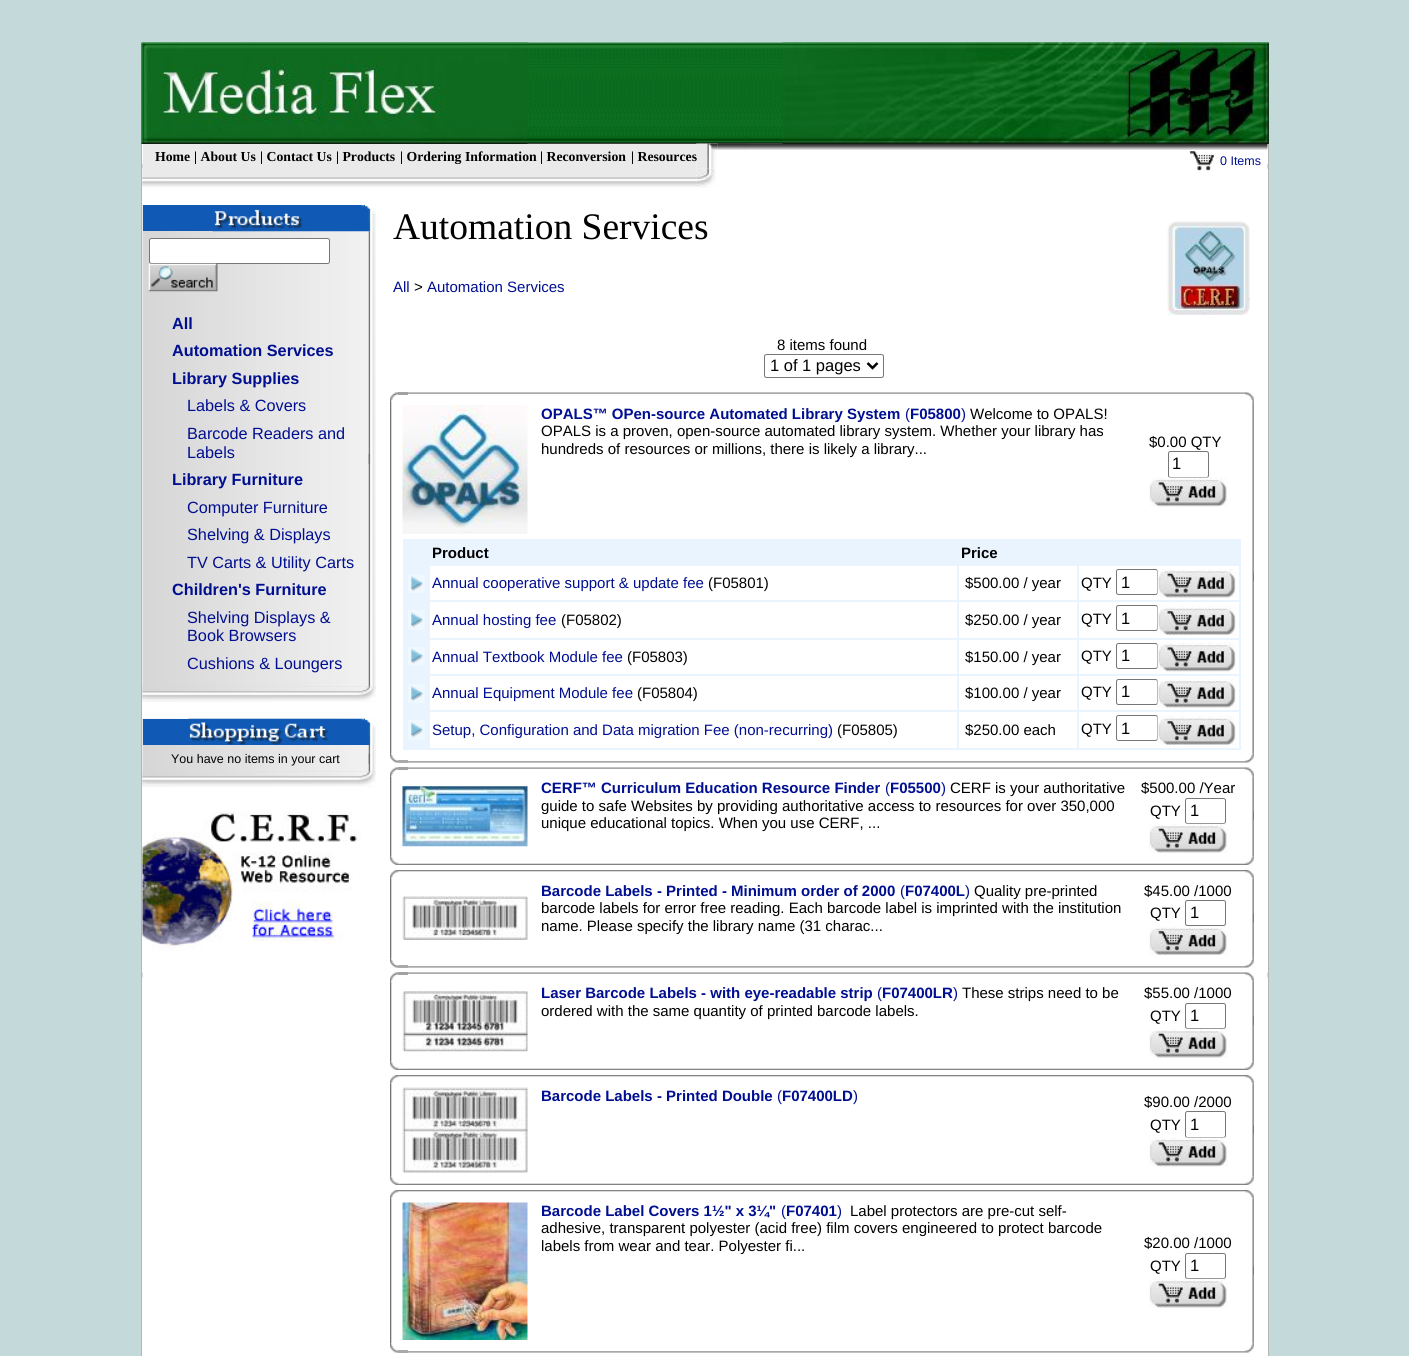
#include <cairo.h>
#include <math.h>
#include <stddef.h>

static cairo_t *c;
static void C(unsigned color){cairo_set_source_rgb(c, (color >> 16) / 255.0, (color >> 8 & 255) / 255.0, (color & 255) / 255.0);}
static void F(const char *family, double size, int italic, int bold){cairo_select_font_face(c, family, italic ? CAIRO_FONT_SLANT_ITALIC : CAIRO_FONT_SLANT_NORMAL,bold ? CAIRO_FONT_WEIGHT_BOLD : CAIRO_FONT_WEIGHT_NORMAL);cairo_set_font_size(c, size);}
static void T(double x, double y, const char *s){cairo_move_to(c, x, y);cairo_show_text(c, s);}
static void R(double x, double y, double w, double h){cairo_rectangle(c, x, y, w, h);cairo_fill(c);}
static void Q(double x, double y, double w, double h, double r){cairo_new_sub_path(c);cairo_arc(c, x + w - r, y + h - r, r, 0, M_PI / 2);cairo_arc(c, x + r, y + h - r, r, M_PI / 2, M_PI);cairo_arc(c, x + r, y + r, r, M_PI, 1.5 * M_PI);cairo_arc(c, x + w - r, y + r, r, 1.5 * M_PI, 2 * M_PI);cairo_close_path(c);}
static void I(const char *path, double x, double y, double w, double h){cairo_surface_t *image = cairo_image_surface_create_from_png(path);cairo_save(c);cairo_set_source_surface(c, image, x, y);cairo_rectangle(c, x, y, w, h);cairo_fill(c);cairo_restore(c);cairo_surface_destroy(image);}
int main(void) {
cairo_surface_t *surface = cairo_image_surface_create(CAIRO_FORMAT_RGB24, 1409, 1356);
c = cairo_create(surface);
cairo_font_options_t *options = cairo_font_options_create();
cairo_font_options_set_hint_metrics(options, CAIRO_HINT_METRICS_OFF);
cairo_font_options_set_hint_style(options, CAIRO_HINT_STYLE_NONE);
cairo_set_font_options(c, options);
cairo_set_miter_limit(c, 4);
C(0xc4d9d9);
cairo_paint(c);
C(0xffffff);
R(141,43,1128,1313);
I("1.png",141,42,1128,102);
I("2.png",141,42,387,102);
I("5.png",696,143,22,26);
I("7.png",717,143,551,7);
I("3.png",782,42,487,102);
C(0xb5b5b5);
R(141,144,1,1212);
I("4.png",142,163,1,6);
C(0xeaeaea);
R(143,144,553,25);
F("Liberation Serif",13.75,0,1);
C(0x000000);
T(155,161,"Home");
T(194,161,"| About Us");
T(260,161,"| Contact Us");
T(336,161,"| Products");
T(400,161,"| Ordering Information");
T(540,161,"| Reconversion");
T(631,161,"| Resources");
I("6.png",696,143,22,15);
I("8.png",717,143,33,7);
I("9.png",1189,151,25,20);
F("Liberation Sans",12.5,0,0);
C(0x000e90);
T(1220,165,"0 Items");
I("10.png",142,169,555,19);
I("11.png",142,169,19,17);
I("12.png",696,168,20,20);
C(0xb5b5b5);
R(1268,144,1,1212);
I("4.png",1267,163,1,6);
I("13.png",142,972,1,6);
I("14.png",142,205,234,497);
C(0x105ab5);
R(143,205,70,26);
I("17.png",368,231,8,456);
I("15.png",212,205,165,27);
C(0xffffff);
Q(149.5,238.5,180,25,2);
cairo_fill_preserve(c);
C(0x767676);
cairo_set_line_width(c,1);
cairo_stroke(c);
I("16.png",148,263,70,29);
F("Liberation Sans",16.25,0,1);
C(0x000e90);
T(172,329,"All");
T(172,356,"Automation Services");
T(172,384,"Library Supplies");
F("Liberation Sans",16.25,0,0);
T(187,411,"Labels & Covers");
T(187,439,"Barcode Readers and");
T(187,458,"Labels");
F("Liberation Sans",16.25,0,1);
T(172,485,"Library Furniture");
F("Liberation Sans",16.25,0,0);
T(187,513,"Computer Furniture");
T(187,540,"Shelving & Displays");
T(187,568,"TV Carts & Utility Carts");
F("Liberation Sans",16.25,0,1);
T(172,595,"Children's Furniture");
F("Liberation Sans",16.25,0,0);
T(187,623,"Shelving Displays &");
T(187,641,"Book Browsers");
T(187,669,"Cushions & Loungers");
I("18.png",368,453,3,11);
I("19.png",142,686,234,15);
I("20.png",146,686,230,15);
I("21.png",142,718,234,69);
C(0x105ab5);
R(143,719,46,26);
I("22.png",188,718,188,27);
F("Liberation Sans",12.5,0,0);
C(0x000000);
T(171,763,"You have no items in your cart");
I("23.png",368,745,8,27);
I("24.png",368,753,3,11);
I("25.png",142,771,234,15);
I("20.png",146,771,230,15);
I("26.png",142,811,219,140);
F("Liberation Serif",37.5,0,0);
T(393,239,"Automation Services");
F("Liberation Sans",15,0,0);
C(0x000e90);
T(393,292,"All");
C(0x000000);
T(414,292,">");
C(0x000e90);
T(427,292,"Automation Services");
I("27.png",1167,221,83,94);
C(0x000000);
T(777,350,"8 items found");
Q(764.5,354.5,119,23,2);
C(0x767676);
cairo_stroke(c);
cairo_new_path(c);
cairo_move_to(c,867.5,363);
cairo_line_to(c,872.5,368);
cairo_line_to(c,877.5,363);
C(0x000000);
cairo_set_line_width(c,2.5);
cairo_stroke(c);
F("Liberation Sans",16.5,0,0);
T(770,371,"1 of 1 pages");
I("31.png",390,401,2,353);
I("28.png",390,392,9,10);
I("29.png",408,392,837,2);
C(0xa2a2a2);
R(398,392,10,3);
I("41.png",1252,401,2,353);
I("30.png",1245,392,9,10);
I("32.png",402,405,126,129);
F("Liberation Sans",15,0,1);
C(0x000e90);
T(541,419,"OPALS™ OPen-source Automated Library System");
F("Liberation Sans",15,0,0);
T(905,419,"(");
F("Liberation Sans",15,0,1);
T(910,419,"F05800");
F("Liberation Sans",15,0,0);
T(961,419,")");
C(0x000000);
T(970,419,"Welcome to OPALS!");
T(541,436,"OPALS is a proven, open-source automated library system. Whether your library has");
T(541,454,"hundreds of resources or millions, there is likely a library...");
T(1149,447,"$0.00 QTY");
Q(1168.5,451.5,40,26,2);
C(0x767676);
cairo_set_line_width(c,1);
cairo_stroke(c);
F("Liberation Sans",16.5,0,0);
C(0x000000);
T(1172,469,"1");
I("33.png",1149,477,79,30);
cairo_rectangle(c,403.5,539.5,837,210);
C(0xeaf4ff);
cairo_stroke(c);
R(404,540,836,25);
F("Liberation Sans",15,0,1);
C(0x000000);
T(432,558,"Product");
T(961,558,"Price");
C(0xeaf4ff);
R(404,565,25,184);
I("34.png",408,574,17,19);
cairo_rectangle(c,429.5,565.5,528,35);
cairo_stroke(c);
F("Liberation Sans",15,0,0);
C(0x000e90);
T(432,588,"Annual cooperative support & update fee");
C(0x000000);
T(708,588,"(F05801)");
cairo_rectangle(c,958.5,565.5,119,35);
C(0xeaf4ff);
cairo_stroke(c);
C(0x000000);
T(965,588,"$500.00 / year");
cairo_rectangle(c,1078.5,565.5,161,35);
C(0xeaf4ff);
cairo_stroke(c);
C(0x000000);
T(1081,588,"QTY");
Q(1116.5,569.5,41,25,2);
C(0x767676);
cairo_stroke(c);
F("Liberation Sans",16.5,0,0);
C(0x000000);
T(1121,588,"1");
I("35.png",1157,569,79,29);
I("36.png",408,610,17,20);
cairo_rectangle(c,429.5,601.5,528,37);
C(0xeaf4ff);
cairo_stroke(c);
F("Liberation Sans",15,0,0);
C(0x000e90);
T(432,625,"Annual hosting fee");
C(0x000000);
T(561,625,"(F05802)");
cairo_rectangle(c,958.5,601.5,119,37);
C(0xeaf4ff);
cairo_stroke(c);
C(0x000000);
T(965,625,"$250.00 / year");
cairo_rectangle(c,1078.5,601.5,161,37);
C(0xeaf4ff);
cairo_stroke(c);
C(0x000000);
T(1081,624,"QTY");
Q(1116.5,605.5,41,25,2);
C(0x767676);
cairo_stroke(c);
F("Liberation Sans",16.5,0,0);
C(0x000000);
T(1121,624,"1");
I("37.png",1157,606,79,29);
I("38.png",408,647,17,19);
cairo_rectangle(c,429.5,639.5,528,35);
C(0xeaf4ff);
cairo_stroke(c);
F("Liberation Sans",15,0,0);
C(0x000e90);
T(432,662,"Annual Textbook Module fee");
C(0x000000);
T(627,662,"(F05803)");
cairo_rectangle(c,958.5,639.5,119,35);
C(0xeaf4ff);
cairo_stroke(c);
C(0x000000);
T(965,662,"$150.00 / year");
cairo_rectangle(c,1078.5,639.5,161,35);
C(0xeaf4ff);
cairo_stroke(c);
C(0x000000);
T(1081,661,"QTY");
Q(1116.5,643.5,41,25,2);
C(0x767676);
cairo_stroke(c);
F("Liberation Sans",16.5,0,0);
C(0x000000);
T(1121,661,"1");
I("39.png",1157,642,79,30);
I("34.png",408,684,17,19);
cairo_rectangle(c,429.5,675.5,528,35);
C(0xeaf4ff);
cairo_stroke(c);
F("Liberation Sans",15,0,0);
C(0x000e90);
T(432,698,"Annual Equipment Module fee");
C(0x000000);
T(637,698,"(F05804)");
cairo_rectangle(c,958.5,675.5,119,35);
C(0xeaf4ff);
cairo_stroke(c);
C(0x000000);
T(965,698,"$100.00 / year");
cairo_rectangle(c,1078.5,675.5,161,35);
C(0xeaf4ff);
cairo_stroke(c);
C(0x000000);
T(1081,697,"QTY");
Q(1116.5,679.5,41,25,2);
C(0x767676);
cairo_stroke(c);
F("Liberation Sans",16.5,0,0);
C(0x000000);
T(1121,697,"1");
I("40.png",1157,679,79,29);
I("36.png",408,720,17,20);
cairo_rectangle(c,429.5,711.5,528,37);
C(0xeaf4ff);
cairo_stroke(c);
F("Liberation Sans",15,0,0);
C(0x000e90);
T(432,735,"Setup, Configuration and Data migration Fee (non-recurring)");
C(0x000000);
T(837,735,"(F05805)");
cairo_rectangle(c,958.5,711.5,119,37);
C(0xeaf4ff);
cairo_stroke(c);
C(0x000000);
T(965,735,"$250.00 each");
cairo_rectangle(c,1078.5,711.5,161,37);
C(0xeaf4ff);
cairo_stroke(c);
C(0x000000);
T(1081,734,"QTY");
Q(1116.5,715.5,41,25,2);
C(0x767676);
cairo_stroke(c);
F("Liberation Sans",16.5,0,0);
C(0x000000);
T(1121,734,"1");
I("37.png",1157,716,79,29);
I("42.png",1253,572,1,10);
I("43.png",390,753,9,10);
I("44.png",408,761,837,2);
C(0xaaaaaa);
R(398,760,10,3);
I("45.png",1245,753,9,10);
I("46.png",390,776,2,81);
I("28.png",390,767,9,10);
I("29.png",408,767,837,2);
C(0xa2a2a2);
R(398,767,10,3);
I("49.png",1252,776,2,81);
I("30.png",1245,767,9,10);
I("47.png",402,786,126,61);
F("Liberation Sans",15,0,1);
C(0x000e90);
T(541,793,"CERF™ Curriculum Education Resource Finder");
F("Liberation Sans",15,0,0);
T(885,793,"(");
F("Liberation Sans",15,0,1);
T(890,793,"F05500");
F("Liberation Sans",15,0,0);
T(941,793,")");
C(0x000000);
T(950,793,"CERF is your authoritative");
T(541,811,"guide to safe Websites by providing authoritative access to resources for over 350,000");
T(541,828,"unique educational topics. When you use CERF, ...");
T(1141,793,"$500.00 /Year");
T(1150,816,"QTY");
Q(1185.5,798.5,40,25,2);
C(0x767676);
cairo_stroke(c);
F("Liberation Sans",16.5,0,0);
C(0x000000);
T(1190,816,"1");
I("48.png",1149,823,79,30);
I("50.png",1253,811,1,9);
I("52.png",398,863,847,2);
I("51.png",390,856,9,9);
I("53.png",398,863,9,2);
I("54.png",1245,856,9,9);
I("56.png",398,870,847,2);
I("58.png",390,878,2,81);
I("55.png",390,870,9,9);
C(0x8f8f8f);
R(398,870,1,1);
I("61.png",1252,878,2,81);
I("57.png",1245,870,9,9);
I("59.png",402,896,126,44);
F("Liberation Sans",15,0,1);
C(0x000e90);
T(541,896,"Barcode Labels - Printed - Minimum order of 2000");
F("Liberation Sans",15,0,0);
T(900,896,"(");
F("Liberation Sans",15,0,1);
T(905,896,"F07400L");
F("Liberation Sans",15,0,0);
T(965,896,")");
C(0x000000);
T(974,896,"Quality pre-printed");
T(541,913,"barcode labels for error free reading. Each barcode label is imprinted with the institution");
T(541,931,"name. Please specify the library name (31 charac...");
T(1144,896,"$45.00 /1000");
T(1150,918,"QTY");
Q(1185.5,900.5,40,25,2);
C(0x767676);
cairo_stroke(c);
F("Liberation Sans",16.5,0,0);
C(0x000000);
T(1190,918,"1");
I("60.png",1149,926,79,29);
I("62.png",1253,913,1,10);
I("43.png",390,958,9,10);
I("44.png",408,966,837,2);
C(0xaaaaaa);
R(398,965,10,3);
I("45.png",1245,958,9,10);
I("46.png",390,981,2,81);
I("28.png",390,972,9,10);
I("29.png",408,972,837,2);
C(0xa2a2a2);
R(398,972,10,3);
I("49.png",1252,981,2,81);
I("30.png",1245,972,9,10);
I("63.png",402,991,126,61);
F("Liberation Sans",15,0,1);
C(0x000e90);
T(541,998,"Laser Barcode Labels - with eye-readable strip");
F("Liberation Sans",15,0,0);
T(877,998,"(");
F("Liberation Sans",15,0,1);
T(882,998,"F07400LR");
F("Liberation Sans",15,0,0);
T(953,998,")");
C(0x000000);
T(962,998,"These strips need to be");
T(541,1016,"ordered with the same quantity of printed barcode labels.");
T(1144,998,"$55.00 /1000");
T(1150,1021,"QTY");
Q(1185.5,1003.5,40,25,2);
C(0x767676);
cairo_stroke(c);
F("Liberation Sans",16.5,0,0);
C(0x000000);
T(1190,1021,"1");
I("48.png",1149,1028,79,30);
I("50.png",1253,1016,1,9);
I("52.png",398,1068,847,2);
I("51.png",390,1061,9,9);
I("53.png",398,1068,9,2);
I("54.png",1245,1061,9,9);
I("56.png",398,1075,847,2);
I("64.png",390,1083,2,94);
I("55.png",390,1075,9,9);
C(0x8f8f8f);
R(398,1075,1,1);
I("67.png",1252,1083,2,94);
I("57.png",1245,1075,9,9);
I("65.png",402,1087,126,86);
F("Liberation Sans",15,0,1);
C(0x000e90);
T(541,1101,"Barcode Labels - Printed Double");
F("Liberation Sans",15,0,0);
T(777,1101,"(");
F("Liberation Sans",15,0,1);
T(782,1101,"F07400LD");
F("Liberation Sans",15,0,0);
T(853,1101,")");
C(0x000000);
T(1144,1107,"$90.00 /2000");
T(1150,1130,"QTY");
Q(1185.5,1111.5,40,26,2);
C(0x767676);
cairo_stroke(c);
F("Liberation Sans",16.5,0,0);
C(0x000000);
T(1190,1130,"1");
I("66.png",1149,1137,79,30);
I("68.png",1253,1125,1,9);
I("52.png",398,1183,847,2);
I("51.png",390,1176,9,9);
I("53.png",398,1183,9,2);
I("54.png",1245,1176,9,9);
I("56.png",398,1190,847,2);
I("69.png",390,1198,2,146);
I("55.png",390,1190,9,9);
C(0x8f8f8f);
R(398,1190,1,1);
I("71.png",1252,1198,2,146);
I("57.png",1245,1190,9,9);
I("70.png",402,1202,126,138);
F("Liberation Sans",15,0,1);
C(0x000e90);
T(541,1216,"Barcode Label Covers 1½\" x 3¼\"");
F("Liberation Sans",15,0,0);
T(781,1216,"(");
F("Liberation Sans",15,0,1);
T(786,1216,"F07401");
F("Liberation Sans",15,0,0);
T(837,1216,")");
C(0x000000);
T(850,1216,"Label protectors are pre-cut self-");
T(541,1233,"adhesive, transparent polyester (acid free) film covers engineered to protect barcode");
T(541,1251,"labels from wear and tear. Polyester fi...");
T(1144,1248,"$20.00 /1000");
T(1150,1271,"QTY");
Q(1185.5,1253.5,40,25,2);
C(0x767676);
cairo_stroke(c);
F("Liberation Sans",16.5,0,0);
C(0x000000);
T(1190,1271,"1");
I("48.png",1149,1278,79,30);
I("50.png",1253,1266,1,9);
I("43.png",390,1343,9,10);
I("44.png",408,1351,837,2);
C(0xaaaaaa);
R(398,1350,10,3);
I("45.png",1245,1343,9,10);
I("13.png",1267,972,1,6);
cairo_surface_write_to_png(surface, "o.png");
cairo_font_options_destroy(options);
cairo_destroy(c);
cairo_surface_destroy(surface);
return 0;
}
